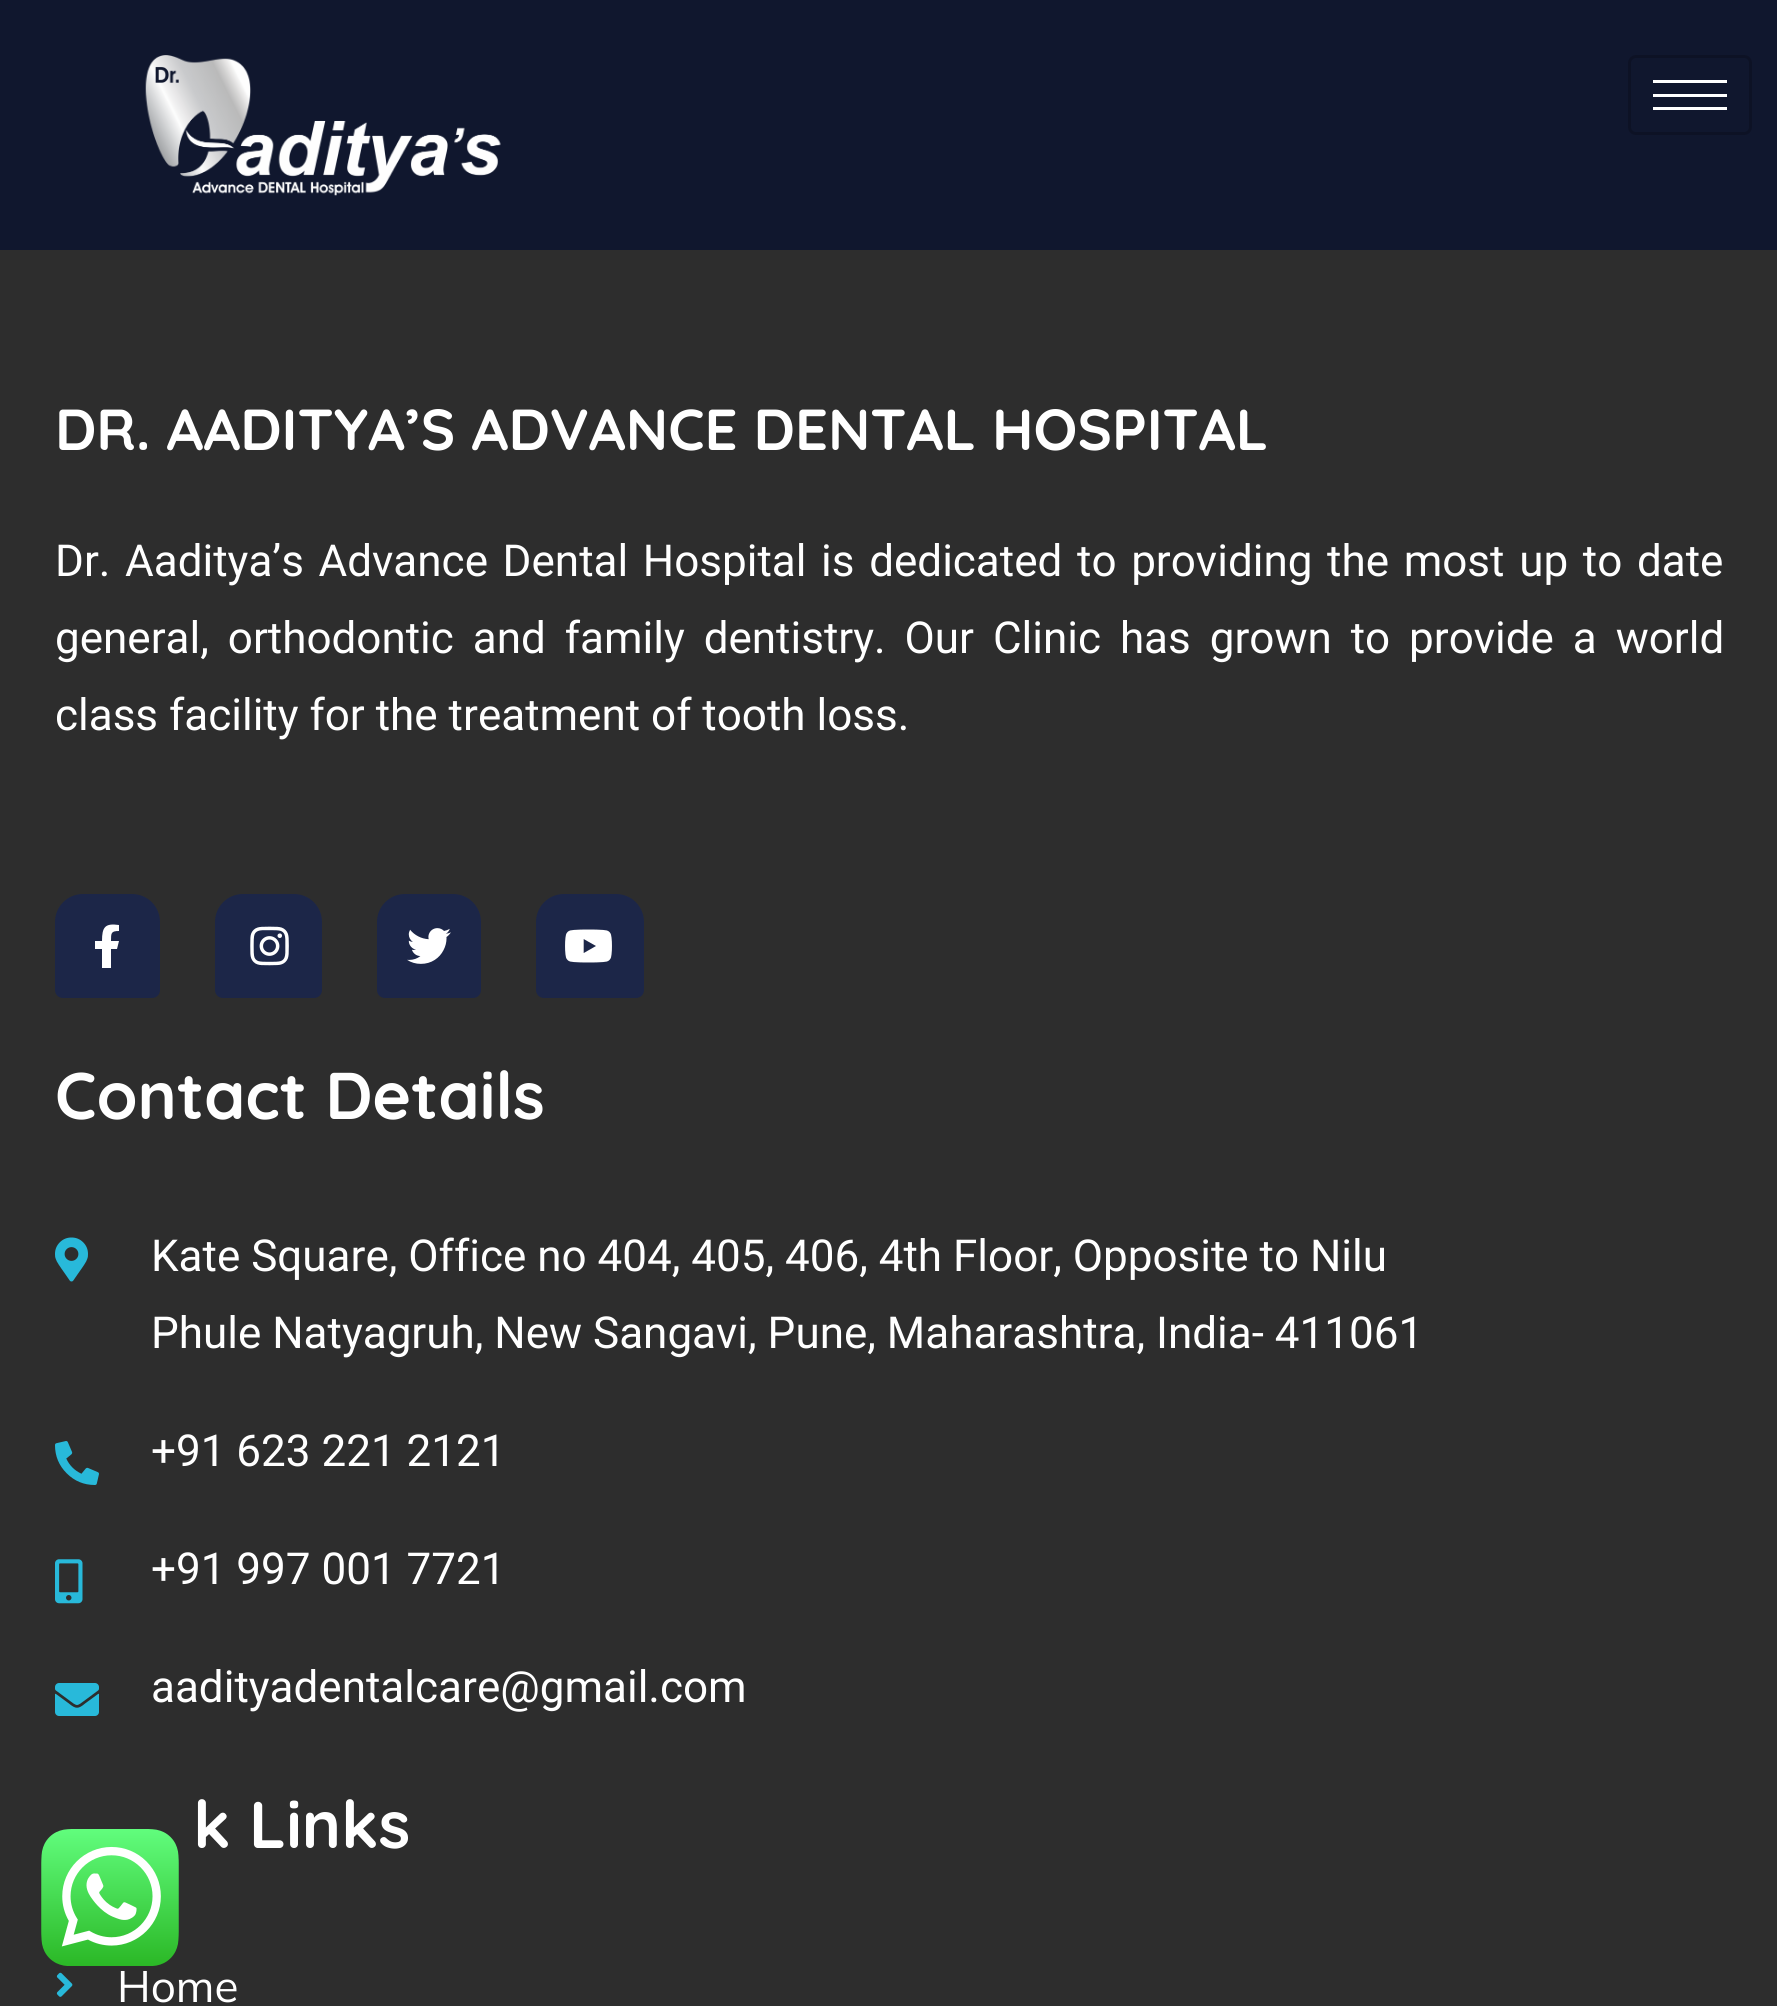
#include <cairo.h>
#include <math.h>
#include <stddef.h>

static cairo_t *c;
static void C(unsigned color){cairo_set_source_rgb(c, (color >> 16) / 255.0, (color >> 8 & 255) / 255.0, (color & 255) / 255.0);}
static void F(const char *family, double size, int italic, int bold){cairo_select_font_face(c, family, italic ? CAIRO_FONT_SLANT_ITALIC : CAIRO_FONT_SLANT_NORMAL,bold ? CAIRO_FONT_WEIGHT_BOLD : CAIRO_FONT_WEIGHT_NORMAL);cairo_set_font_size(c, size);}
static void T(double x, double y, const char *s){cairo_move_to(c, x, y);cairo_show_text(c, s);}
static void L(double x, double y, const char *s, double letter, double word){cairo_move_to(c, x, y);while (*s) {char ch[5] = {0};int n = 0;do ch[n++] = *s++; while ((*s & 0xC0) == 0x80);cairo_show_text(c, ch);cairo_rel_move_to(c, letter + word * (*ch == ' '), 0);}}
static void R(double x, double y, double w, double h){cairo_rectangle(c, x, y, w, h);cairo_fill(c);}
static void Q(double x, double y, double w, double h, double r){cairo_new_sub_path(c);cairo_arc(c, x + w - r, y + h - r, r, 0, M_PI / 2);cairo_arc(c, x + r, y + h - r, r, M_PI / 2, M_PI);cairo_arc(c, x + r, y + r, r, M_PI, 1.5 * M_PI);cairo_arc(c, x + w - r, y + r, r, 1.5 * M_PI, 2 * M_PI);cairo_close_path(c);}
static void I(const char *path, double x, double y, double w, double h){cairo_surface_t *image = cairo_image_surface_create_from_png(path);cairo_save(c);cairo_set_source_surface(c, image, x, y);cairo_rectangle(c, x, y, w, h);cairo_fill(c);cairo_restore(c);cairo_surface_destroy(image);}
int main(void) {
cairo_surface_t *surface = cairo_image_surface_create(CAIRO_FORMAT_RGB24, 1777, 2006);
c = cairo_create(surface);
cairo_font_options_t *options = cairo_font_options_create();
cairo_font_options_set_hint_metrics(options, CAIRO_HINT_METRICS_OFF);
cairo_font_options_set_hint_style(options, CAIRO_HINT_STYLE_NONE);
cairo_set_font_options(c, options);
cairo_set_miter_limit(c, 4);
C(0x2d2d2d);
cairo_paint(c);
C(0x10172e);
R(0,0,1777,250);
I("1.png",145,55,356,141);
Q(1629.5,56.5,121,77,6.5);
C(0x0d1225);
cairo_set_line_width(c,3);
cairo_stroke(c);
C(0xffffff);
R(1653,80,74,3);
R(1653,94,74,3);
R(1653,107,74,3);
F("Quicksand",57.75,0,1);
T(55,450,"DR. AADITYA’S ADVANCE DENTAL HOSPITAL");
F("Roboto",44,0,0);
L(55,576,"Dr. Aaditya’s Advance Dental Hospital is dedicated to providing the most up to date",0,3.75);
L(55,653,"general, orthodontic and family dentistry. Our Clinic has grown to provide a world",0,8);
T(55,730,"class facility for the treatment of tooth loss.");
C(0x1c2648);
cairo_new_path(c);
cairo_move_to(c,83,894);
cairo_line_to(c,132,894);
cairo_curve_to(c,147.5,894,160,906.5,160,922);
cairo_line_to(c,160,990);
cairo_curve_to(c,160,994.5,156.5,998,152,998);
cairo_line_to(c,63,998);
cairo_curve_to(c,58.5,998,55,994.5,55,990);
cairo_line_to(c,55,922);
cairo_curve_to(c,55,906.5,67.5,894,83,894);
cairo_close_path(c);
cairo_fill(c);
C(0xffffff);
cairo_new_path(c);
cairo_move_to(c,117,949);
cairo_line_to(c,111,949);
cairo_line_to(c,111,968);
cairo_line_to(c,102,968);
cairo_line_to(c,102,949);
cairo_line_to(c,95,949);
cairo_line_to(c,95,941);
cairo_line_to(c,102,941);
cairo_curve_to(c,102,927,105,923,119,925);
cairo_line_to(c,119,931);
cairo_curve_to(c,111,931,111,933,111,941);
cairo_line_to(c,119,941);
cairo_close_path(c);
cairo_fill(c);
C(0x1c2648);
cairo_new_path(c);
cairo_move_to(c,243,894);
cairo_line_to(c,294,894);
cairo_curve_to(c,309.5,894,322,906.5,322,922);
cairo_line_to(c,322,990);
cairo_curve_to(c,322,994.5,318.5,998,314,998);
cairo_line_to(c,223,998);
cairo_curve_to(c,218.5,998,215,994.5,215,990);
cairo_line_to(c,215,922);
cairo_curve_to(c,215,906.5,227.5,894,243,894);
cairo_close_path(c);
cairo_fill(c);
I("2.png",250,926,39,40);
cairo_new_path(c);
cairo_move_to(c,405,894);
cairo_line_to(c,453,894);
cairo_curve_to(c,468.5,894,481,906.5,481,922);
cairo_line_to(c,481,990);
cairo_curve_to(c,481,994.5,477.5,998,473,998);
cairo_line_to(c,385,998);
cairo_curve_to(c,380.5,998,377,994.5,377,990);
cairo_line_to(c,377,922);
cairo_curve_to(c,377,906.5,389.5,894,405,894);
cairo_close_path(c);
cairo_fill(c);
I("3.png",407,928,44,36);
cairo_new_path(c);
cairo_move_to(c,564,894);
cairo_line_to(c,616,894);
cairo_curve_to(c,631.5,894,644,906.5,644,922);
cairo_line_to(c,644,990);
cairo_curve_to(c,644,994.5,640.5,998,636,998);
cairo_line_to(c,544,998);
cairo_curve_to(c,539.5,998,536,994.5,536,990);
cairo_line_to(c,536,922);
cairo_curve_to(c,536,906.5,548.5,894,564,894);
cairo_close_path(c);
cairo_fill(c);
I("4.png",565,929,47,34);
F("Quicksand",66,0,1);
C(0xffffff);
T(55,1119,"Contact Details");
I("5.png",55,1237,33,45);
F("Roboto",44,0,0);
T(151,1271,"Kate Square, Office no 404, 405, 406, 4th Floor, Opposite to Nilu");
T(151,1348,"Phule Natyagruh, New Sangavi, Pune, Maharashtra, India- 411061");
I("6.png",55,1441,44,44);
T(151,1466,"+91 623 221 2121");
I("7.png",55,1559,28,45);
T(151,1584,"+91 997 001 7721");
I("8.png",55,1683,44,33);
T(151,1702,"aadityadentalcare@gmail.com");
F("Quicksand",66,0,1);
T(193,1848,"k Links");
I("9.png",56,1972,17,25);
F("Mulish",44,0,0);
T(117,2002,"Home");
I("10.png",41,1829,138,137);
cairo_surface_write_to_png(surface, "o.png");
cairo_font_options_destroy(options);
cairo_destroy(c);
cairo_surface_destroy(surface);
return 0;
}
